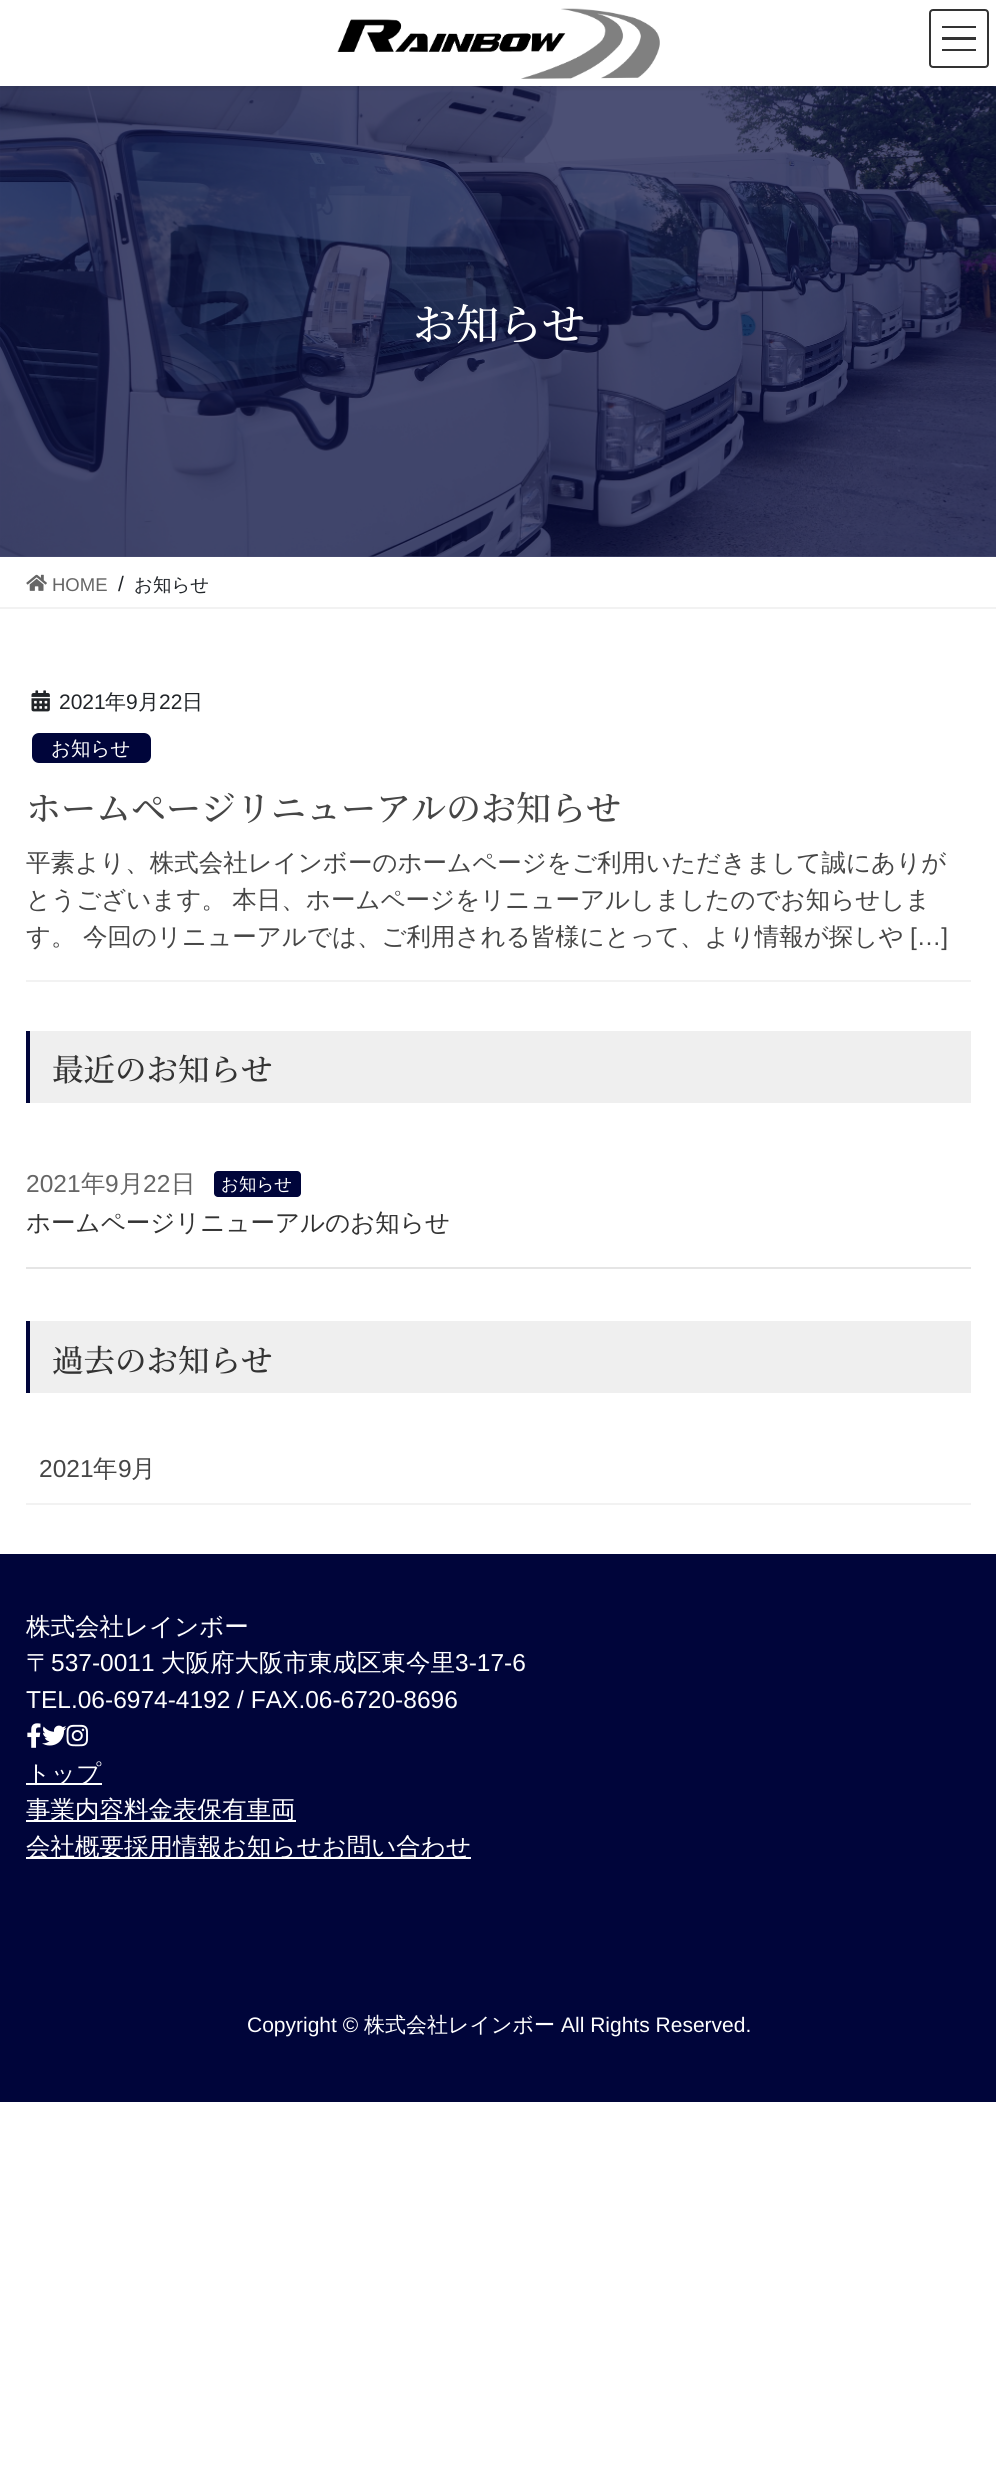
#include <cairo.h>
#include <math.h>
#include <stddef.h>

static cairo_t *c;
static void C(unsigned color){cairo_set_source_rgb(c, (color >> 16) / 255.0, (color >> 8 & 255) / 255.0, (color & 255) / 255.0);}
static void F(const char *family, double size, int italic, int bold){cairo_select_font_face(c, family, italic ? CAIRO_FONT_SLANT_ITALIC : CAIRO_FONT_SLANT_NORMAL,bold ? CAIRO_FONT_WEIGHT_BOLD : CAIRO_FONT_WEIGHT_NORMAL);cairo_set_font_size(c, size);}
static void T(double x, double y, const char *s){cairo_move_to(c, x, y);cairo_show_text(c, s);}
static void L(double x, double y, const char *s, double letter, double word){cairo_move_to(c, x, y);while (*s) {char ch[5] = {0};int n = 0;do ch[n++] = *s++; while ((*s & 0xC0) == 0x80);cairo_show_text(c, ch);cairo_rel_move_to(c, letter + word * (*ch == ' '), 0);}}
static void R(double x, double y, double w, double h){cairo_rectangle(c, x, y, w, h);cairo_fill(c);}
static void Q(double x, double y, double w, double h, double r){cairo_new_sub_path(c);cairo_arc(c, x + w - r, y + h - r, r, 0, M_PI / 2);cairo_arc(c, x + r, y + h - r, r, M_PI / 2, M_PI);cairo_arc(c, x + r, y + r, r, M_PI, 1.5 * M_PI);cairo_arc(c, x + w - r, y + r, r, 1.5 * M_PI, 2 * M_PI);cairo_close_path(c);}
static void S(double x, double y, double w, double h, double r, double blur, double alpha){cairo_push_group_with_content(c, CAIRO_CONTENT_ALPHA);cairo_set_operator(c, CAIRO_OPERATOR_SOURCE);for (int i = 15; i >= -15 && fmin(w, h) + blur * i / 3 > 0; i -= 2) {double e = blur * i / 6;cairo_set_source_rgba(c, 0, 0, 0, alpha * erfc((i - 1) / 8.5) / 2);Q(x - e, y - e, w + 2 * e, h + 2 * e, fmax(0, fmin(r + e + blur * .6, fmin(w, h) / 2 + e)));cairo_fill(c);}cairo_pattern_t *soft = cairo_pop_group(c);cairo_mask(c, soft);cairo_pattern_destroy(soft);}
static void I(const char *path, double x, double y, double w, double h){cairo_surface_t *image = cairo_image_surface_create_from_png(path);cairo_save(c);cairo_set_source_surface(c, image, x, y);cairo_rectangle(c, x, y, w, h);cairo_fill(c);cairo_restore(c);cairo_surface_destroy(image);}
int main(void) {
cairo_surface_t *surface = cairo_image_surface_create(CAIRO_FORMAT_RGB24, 996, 2491);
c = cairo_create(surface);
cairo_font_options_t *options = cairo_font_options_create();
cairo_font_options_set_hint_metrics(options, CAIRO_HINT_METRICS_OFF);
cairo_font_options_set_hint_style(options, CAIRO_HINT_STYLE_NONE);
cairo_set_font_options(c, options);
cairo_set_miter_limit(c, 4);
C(0xffffff);
cairo_paint(c);
C(0x4d5075);
R(0,86,996,471);
I("2.png",0,86,996,471);
C(0x000000);
S(0,2,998,86,0,2.5,.1);
C(0xffffff);
R(0,0,996,86);
I("1.png",337,8,323,71);
C(0x333333);
R(942,26,34,2);
R(942,37,34,3);
R(942,49,34,2);
Q(930,10,58,57,3);
cairo_stroke(c);
F("Noto Serif JP ExtraLight",43,0,0);
C(0xffffff);
T(413,340,"お知らせ");
C(0xf2f2f2);
R(0,607,996,2);
I("3.png",26,574,21,17);
F("Liberation Sans",18.5,0,0);
C(0x666666);
T(52,591,"HOME");
F("Liberation Sans",21,0,0);
C(0x212529);
T(118,591,"/");
F("WenQuanYi Zen Hei Medium",18.5,0,0);
T(134,591,"お知らせ");
C(0xf2f2f2);
R(26,980,945,2);
I("4.png",31,690,19,22);
F("Liberation Sans",21,0,0);
C(0x212529);
T(59,709,"2021");
F("WenQuanYi Zen Hei Medium",21,0,0);
T(105,709,"年");
F("Liberation Sans",21,0,0);
T(126,709,"9");
F("WenQuanYi Zen Hei Medium",21,0,0);
T(138,709,"月");
F("Liberation Sans",21,0,0);
T(159,709,"22");
F("WenQuanYi Zen Hei Medium",21,0,0);
T(182,709,"日");
C(0x00053a);
Q(32,733,119,30,7);
cairo_fill(c);
F("WenQuanYi Zen Hei Medium",19.5,0,0);
C(0xffffff);
T(51,755,"お知らせ");
F("Noto Serif JP ExtraLight",35,0,0);
C(0x464646);
T(26,821,"ホームページリニューアルのお知らせ");
F("WenQuanYi Zen Hei Medium",24.5,0,0);
T(26,871,"平素より、株式会社レインボーのホームページをご利用いただきまして誠にありが");
L(26,908,"とうございます。 本日、ホームページをリニューアルしましたのでお知らせしま",0,-1);
T(26,945,"す。 今回のリニューアルでは、ご利用される皆様にとって、より情報が探しや");
F("Liberation Sans",24.5,0,0);
T(910,945,"[…]");
C(0xefefef);
R(30,1031,941,72);
C(0x00053a);
R(26,1031,4,72);
F("Noto Serif JP ExtraLight",31.5,0,0);
C(0x333333);
T(52,1081,"最近のお知らせ");
C(0xe5e5e5);
R(26,1267,945,2);
F("Liberation Sans",24.5,0,0);
C(0x666666);
T(26,1192,"2021");
F("WenQuanYi Zen Hei Medium",24.5,0,0);
T(81,1192,"年");
F("Liberation Sans",24.5,0,0);
T(105,1192,"9");
F("WenQuanYi Zen Hei Medium",24.5,0,0);
T(119,1192,"月");
F("Liberation Sans",24.5,0,0);
T(143,1192,"22");
F("WenQuanYi Zen Hei Medium",24.5,0,0);
T(171,1192,"日");
C(0x00053a);
Q(214,1171,87,26,4);
cairo_fill(c);
F("WenQuanYi Zen Hei Medium",17.5,0,0);
C(0xffffff);
T(221,1190,"お知らせ");
F("WenQuanYi Zen Hei Medium",24.5,0,0);
C(0x333333);
T(26,1231,"ホームページリニューアルのお知らせ");
C(0xefefef);
R(30,1321,941,72);
C(0x00053a);
R(26,1321,4,72);
F("Noto Serif JP ExtraLight",31.5,0,0);
C(0x333333);
T(52,1372,"過去のお知らせ");
C(0xf2f2f2);
R(26,1503,945,2);
F("Liberation Sans",24.5,0,0);
C(0x464646);
T(39,1477,"2021");
F("WenQuanYi Zen Hei Medium",24.5,0,0);
T(93,1477,"年");
F("Liberation Sans",24.5,0,0);
T(118,1477,"9");
F("WenQuanYi Zen Hei Medium",24.5,0,0);
T(131,1477,"月");
C(0x00053a);
R(0,1554,996,548);
C(0xffffff);
T(26,1635,"株式会社レインボー");
T(26,1671,"〒");
F("Liberation Sans",24.5,0,0);
T(51,1671,"537-0011");
F("WenQuanYi Zen Hei Medium",24.5,0,0);
T(161,1671,"大阪府大阪市東成区東今里");
F("Liberation Sans",24.5,0,0);
T(455,1671,"3-17-6");
T(26,1708,"TEL.06-6974-4192 / FAX.06-6720-8696");
I("5.png",27,1723,14,25);
I("6.png",42,1725,25,21);
I("7.png",66,1724,22,23);
R(26,1783,76,2);
F("WenQuanYi Zen Hei Medium",24.5,0,0);
T(26,1782,"トップ");
R(26,1820,270,2);
T(26,1818,"事業内容料金表保有車両");
R(26,1857,445,2);
T(26,1855,"会社概要採用情報お知らせお問い合わせ");
F("Liberation Sans",21,0,0);
T(247,2032,"Copyright ©");
F("WenQuanYi Zen Hei Medium",21,0,0);
T(364,2032,"株式会社レインボー");
F("Liberation Sans",21,0,0);
T(561,2032,"All Rights Reserved.");
cairo_surface_write_to_png(surface, "o.png");
cairo_font_options_destroy(options);
cairo_destroy(c);
cairo_surface_destroy(surface);
return 0;
}
